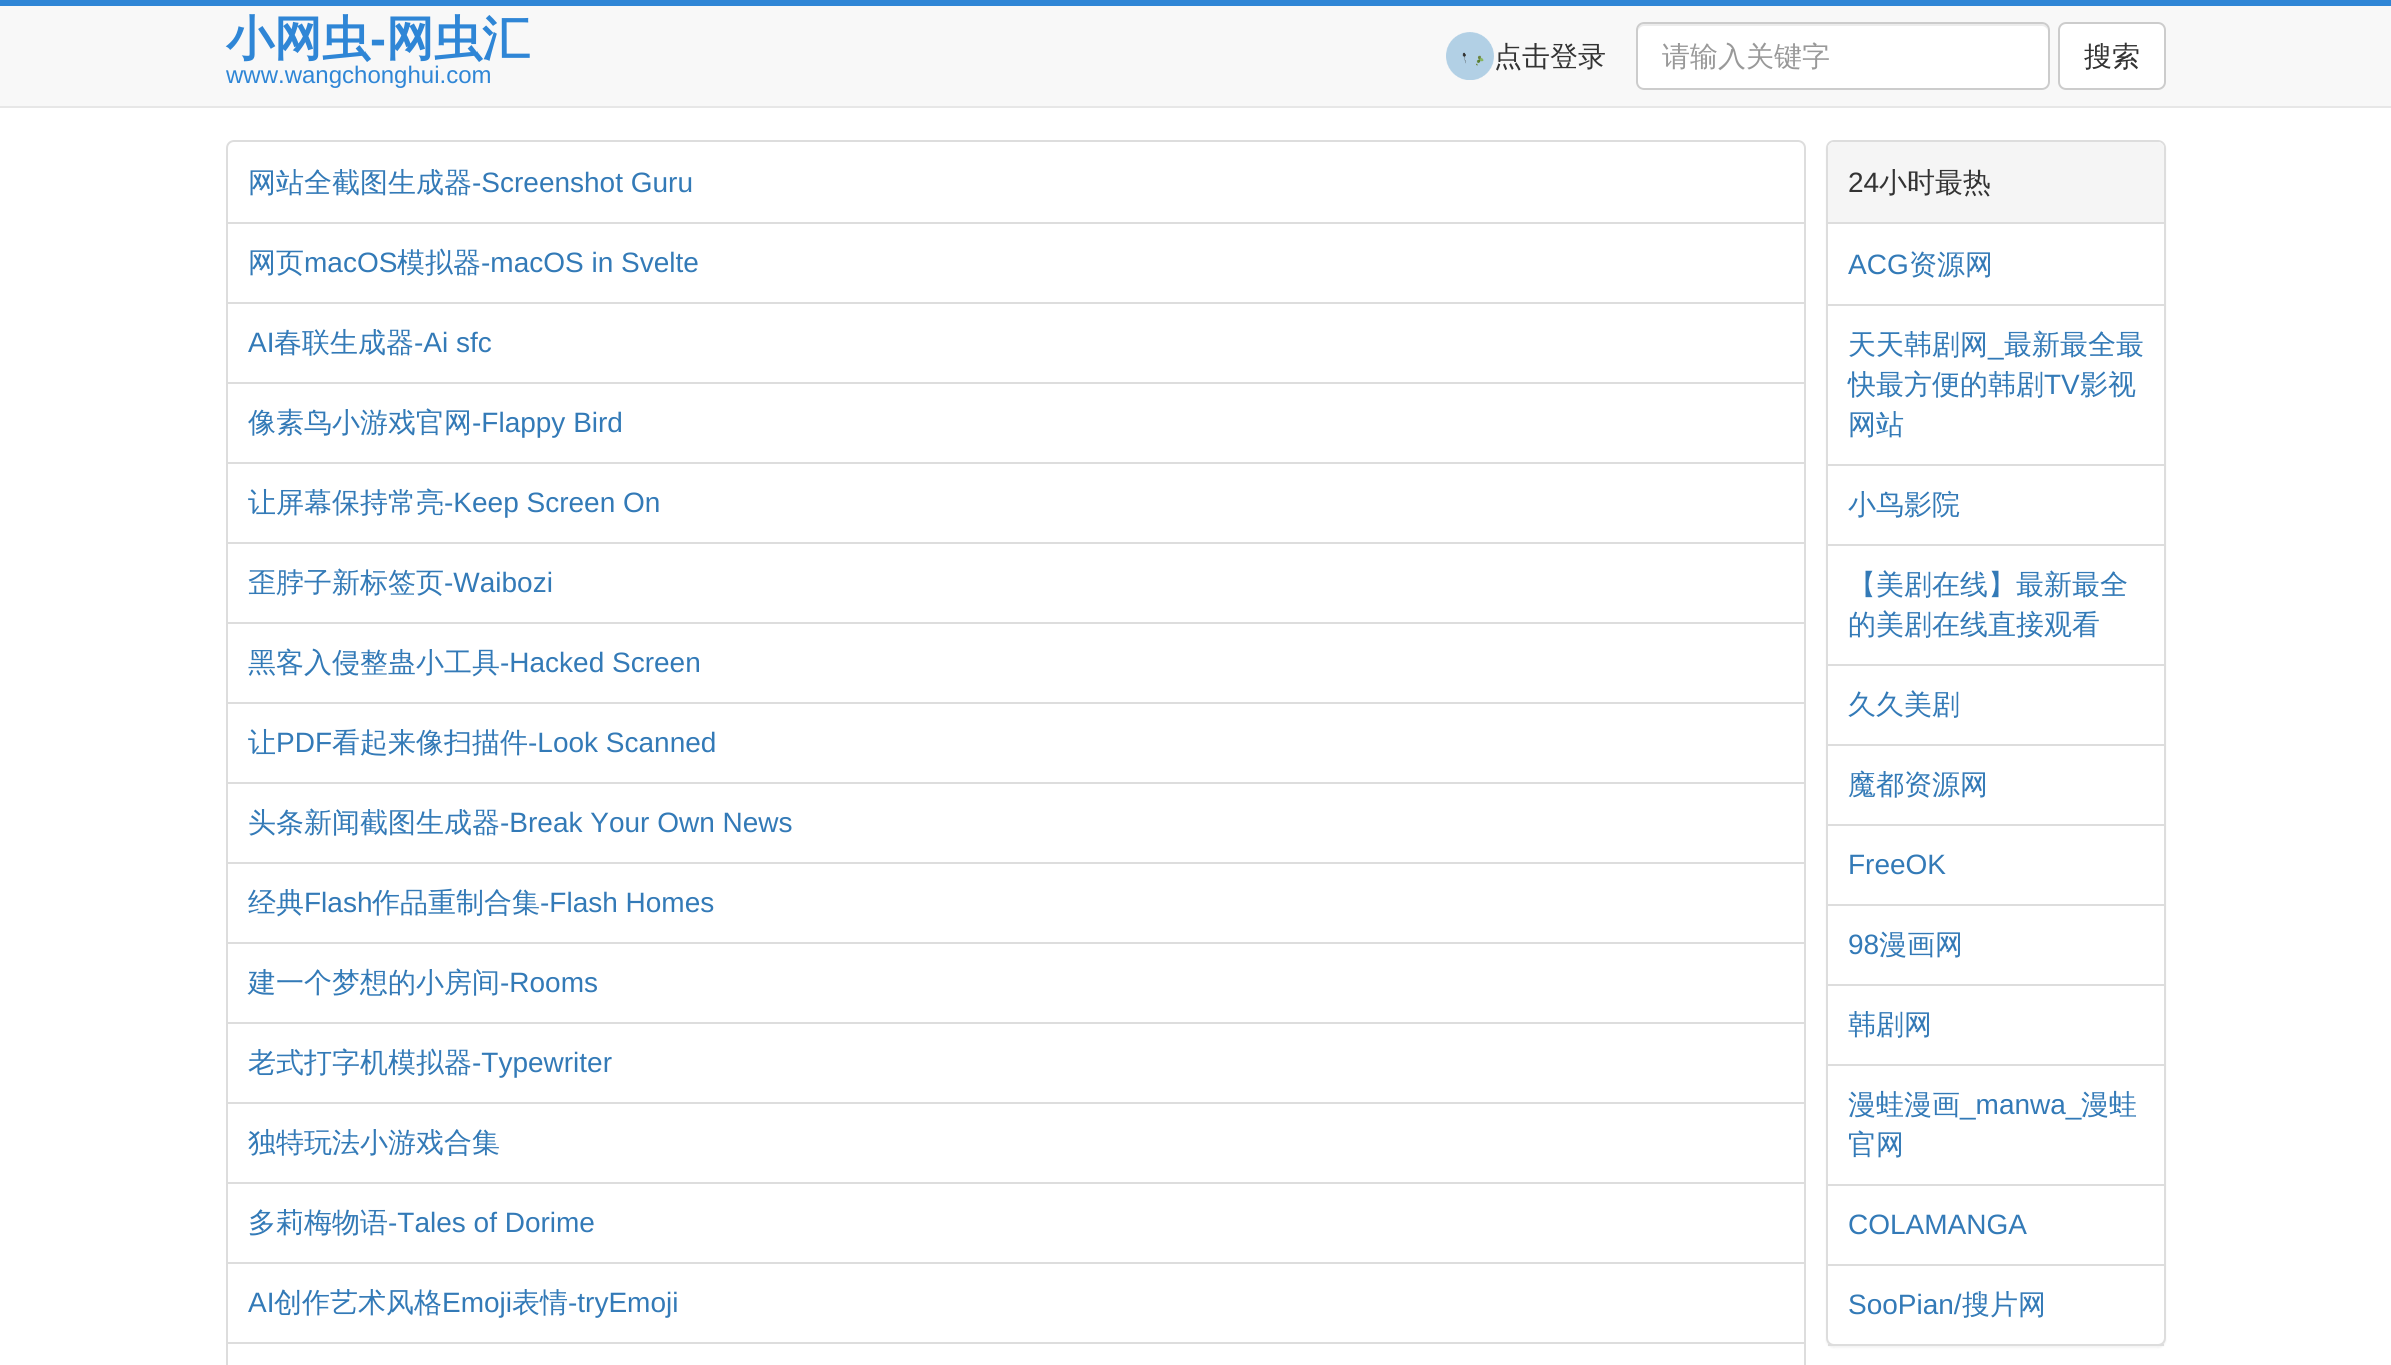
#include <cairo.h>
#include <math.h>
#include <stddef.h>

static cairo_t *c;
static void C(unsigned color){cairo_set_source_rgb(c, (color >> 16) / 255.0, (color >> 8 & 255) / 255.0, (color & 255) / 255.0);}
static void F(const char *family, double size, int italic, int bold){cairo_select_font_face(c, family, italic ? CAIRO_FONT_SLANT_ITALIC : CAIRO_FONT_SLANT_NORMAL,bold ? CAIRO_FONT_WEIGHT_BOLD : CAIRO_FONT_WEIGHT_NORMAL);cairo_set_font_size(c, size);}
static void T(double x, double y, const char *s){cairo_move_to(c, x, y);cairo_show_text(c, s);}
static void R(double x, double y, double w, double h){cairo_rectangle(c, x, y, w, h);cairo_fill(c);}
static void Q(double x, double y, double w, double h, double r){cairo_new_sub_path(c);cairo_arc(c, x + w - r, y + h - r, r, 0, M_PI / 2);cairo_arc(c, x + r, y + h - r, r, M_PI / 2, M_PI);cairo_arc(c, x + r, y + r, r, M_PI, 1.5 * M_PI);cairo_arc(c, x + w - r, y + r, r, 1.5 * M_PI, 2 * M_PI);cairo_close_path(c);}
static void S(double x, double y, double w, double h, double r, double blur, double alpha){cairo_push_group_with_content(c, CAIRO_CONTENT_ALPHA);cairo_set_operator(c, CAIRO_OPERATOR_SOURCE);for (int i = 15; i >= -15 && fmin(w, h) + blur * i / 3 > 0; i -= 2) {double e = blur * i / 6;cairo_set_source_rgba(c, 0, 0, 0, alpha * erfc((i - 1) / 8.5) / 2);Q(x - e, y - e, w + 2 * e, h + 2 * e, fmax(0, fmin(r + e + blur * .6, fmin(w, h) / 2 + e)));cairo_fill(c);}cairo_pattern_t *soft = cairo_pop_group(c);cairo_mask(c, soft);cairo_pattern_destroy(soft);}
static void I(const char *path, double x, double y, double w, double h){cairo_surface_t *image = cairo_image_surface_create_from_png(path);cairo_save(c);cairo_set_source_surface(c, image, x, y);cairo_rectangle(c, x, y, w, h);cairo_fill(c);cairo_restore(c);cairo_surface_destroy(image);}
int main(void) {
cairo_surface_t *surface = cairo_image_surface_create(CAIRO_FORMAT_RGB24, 2391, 1365);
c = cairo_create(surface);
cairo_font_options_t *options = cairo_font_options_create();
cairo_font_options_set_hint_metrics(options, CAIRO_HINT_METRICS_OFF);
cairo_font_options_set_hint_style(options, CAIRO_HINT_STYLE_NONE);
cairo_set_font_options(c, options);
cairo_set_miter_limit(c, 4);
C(0xffffff);
cairo_paint(c);
C(0xf8f8f8);
R(0,6,2391,100);
C(0x2f86d6);
R(0,0,2391,6);
C(0xe7e7e7);
R(0,106,2391,2);
F("WenQuanYi Zen Hei",48,0,1);
C(0x2f86d6);
T(226,55,"小网虫");
F("Liberation Sans",48,0,1);
T(370,55,"-");
F("WenQuanYi Zen Hei",48,0,1);
T(386,55,"网虫汇");
F("Liberation Sans",24,0,0);
T(226,83,"www.wangchonghui.com");
I("1.png",1446,32,48,48);
F("WenQuanYi Zen Hei Medium",28,0,0);
C(0x333333);
T(1494,66,"点击登录");
C(0xffffff);
Q(1636,22,414,68,8);
cairo_fill(c);
C(0xececec);
cairo_new_path(c);
cairo_move_to(c,1644,26);
cairo_line_to(c,2042,26);
cairo_curve_to(c,2045,26,2048,29,2048,32);
cairo_curve_to(c,2048,28,2047,24,2042,24);
cairo_line_to(c,1644,24);
cairo_curve_to(c,1639,24,1638,28,1638,32);
cairo_curve_to(c,1638,29,1641,26,1644,26);
cairo_close_path(c);
cairo_fill(c);
Q(1637,23,412,66,7);
C(0xcccccc);
cairo_stroke(c);
C(0x999999);
T(1662,66,"请输入关键字");
C(0xffffff);
Q(2059,23,106,66,7);
cairo_fill_preserve(c);
C(0xcccccc);
cairo_stroke(c);
C(0x333333);
T(2084,66,"搜索");
Q(227,141,1578,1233,7);
C(0xdddddd);
cairo_stroke(c);
R(228,222,1576,2);
C(0x337ab7);
T(248,192,"网站全截图生成器");
F("Liberation Sans",28,0,0);
T(472,192,"-Screenshot Guru");
C(0xdddddd);
R(228,302,1576,2);
F("WenQuanYi Zen Hei Medium",28,0,0);
C(0x337ab7);
T(248,272,"网页");
F("Liberation Sans",28,0,0);
T(304,272,"macOS");
F("WenQuanYi Zen Hei Medium",28,0,0);
T(397,272,"模拟器");
F("Liberation Sans",28,0,0);
T(481,272,"-macOS in Svelte");
C(0xdddddd);
R(228,382,1576,2);
C(0x337ab7);
T(248,352,"AI");
F("WenQuanYi Zen Hei Medium",28,0,0);
T(274,352,"春联生成器");
F("Liberation Sans",28,0,0);
T(414,352,"-Ai sfc");
C(0xdddddd);
R(228,462,1576,2);
F("WenQuanYi Zen Hei Medium",28,0,0);
C(0x337ab7);
T(248,432,"像素鸟小游戏官网");
F("Liberation Sans",28,0,0);
T(472,432,"-Flappy Bird");
C(0xdddddd);
R(228,542,1576,2);
F("WenQuanYi Zen Hei Medium",28,0,0);
C(0x337ab7);
T(248,512,"让屏幕保持常亮");
F("Liberation Sans",28,0,0);
T(444,512,"-Keep Screen On");
C(0xdddddd);
R(228,622,1576,2);
F("WenQuanYi Zen Hei Medium",28,0,0);
C(0x337ab7);
T(248,592,"歪脖子新标签页");
F("Liberation Sans",28,0,0);
T(444,592,"-Waibozi");
C(0xdddddd);
R(228,702,1576,2);
F("WenQuanYi Zen Hei Medium",28,0,0);
C(0x337ab7);
T(248,672,"黑客入侵整蛊小工具");
F("Liberation Sans",28,0,0);
T(500,672,"-Hacked Screen");
C(0xdddddd);
R(228,782,1576,2);
F("WenQuanYi Zen Hei Medium",28,0,0);
C(0x337ab7);
T(248,752,"让");
F("Liberation Sans",28,0,0);
T(276,752,"PDF");
F("WenQuanYi Zen Hei Medium",28,0,0);
T(332,752,"看起来像扫描件");
F("Liberation Sans",28,0,0);
T(528,752,"-Look Scanned");
C(0xdddddd);
R(228,862,1576,2);
F("WenQuanYi Zen Hei Medium",28,0,0);
C(0x337ab7);
T(248,832,"头条新闻截图生成器");
F("Liberation Sans",28,0,0);
T(500,832,"-Break Your Own News");
C(0xdddddd);
R(228,942,1576,2);
F("WenQuanYi Zen Hei Medium",28,0,0);
C(0x337ab7);
T(248,912,"经典");
F("Liberation Sans",28,0,0);
T(304,912,"Flash");
F("WenQuanYi Zen Hei Medium",28,0,0);
T(372,912,"作品重制合集");
F("Liberation Sans",28,0,0);
T(540,912,"-Flash Homes");
C(0xdddddd);
R(228,1022,1576,2);
F("WenQuanYi Zen Hei Medium",28,0,0);
C(0x337ab7);
T(248,992,"建一个梦想的小房间");
F("Liberation Sans",28,0,0);
T(500,992,"-Rooms");
C(0xdddddd);
R(228,1102,1576,2);
F("WenQuanYi Zen Hei Medium",28,0,0);
C(0x337ab7);
T(248,1072,"老式打字机模拟器");
F("Liberation Sans",28,0,0);
T(472,1072,"-Typewriter");
C(0xdddddd);
R(228,1182,1576,2);
F("WenQuanYi Zen Hei Medium",28,0,0);
C(0x337ab7);
T(248,1152,"独特玩法小游戏合集");
C(0xdddddd);
R(228,1262,1576,2);
C(0x337ab7);
T(248,1232,"多莉梅物语");
F("Liberation Sans",28,0,0);
T(388,1232,"-Tales of Dorime");
C(0xdddddd);
R(228,1342,1576,2);
C(0x337ab7);
T(248,1312,"AI");
F("WenQuanYi Zen Hei Medium",28,0,0);
T(274,1312,"创作艺术风格");
F("Liberation Sans",28,0,0);
T(442,1312,"Emoji");
F("WenQuanYi Zen Hei Medium",28,0,0);
T(512,1312,"表情");
F("Liberation Sans",28,0,0);
T(568,1312,"-tryEmoji");
C(0x000000);
S(1826,142,340,1206,8,1,.05);
C(0xffffff);
Q(1827,141,338,1204,7);
cairo_fill_preserve(c);
C(0xdddddd);
cairo_stroke(c);
C(0xf5f5f5);
cairo_new_path(c);
cairo_move_to(c,1834,142);
cairo_line_to(c,2158,142);
cairo_curve_to(c,2161.5,142,2164,144.5,2164,148);
cairo_line_to(c,2164,224);
cairo_line_to(c,1828,224);
cairo_line_to(c,1828,148);
cairo_curve_to(c,1828,144.5,1830.5,142,1834,142);
cairo_close_path(c);
cairo_fill(c);
C(0xdddddd);
R(1828,222,336,2);
C(0x333333);
T(1848,192,"24");
F("WenQuanYi Zen Hei Medium",28,0,0);
T(1879,192,"小时最热");
C(0xdddddd);
R(1828,304,336,2);
F("Liberation Sans",28,0,0);
C(0x337ab7);
T(1848,274,"ACG");
F("WenQuanYi Zen Hei Medium",28,0,0);
T(1909,274,"资源网");
C(0xdddddd);
R(1828,464,336,2);
C(0x337ab7);
T(1848,354,"天天韩剧网");
T(2004,354,"最新最全最");
F("Liberation Sans",28,0,0);
T(1988,354,"_");
F("WenQuanYi Zen Hei Medium",28,0,0);
T(1848,394,"快最方便的韩剧");
F("Liberation Sans",28,0,0);
T(2044,394,"TV");
F("WenQuanYi Zen Hei Medium",28,0,0);
T(2080,394,"影视");
T(1848,434,"网站");
C(0xdddddd);
R(1828,544,336,2);
C(0x337ab7);
T(1848,514,"小鸟影院");
C(0xdddddd);
R(1828,664,336,2);
C(0x337ab7);
T(1848,594,"【美剧在线】最新最全");
T(1848,634,"的美剧在线直接观看");
C(0xdddddd);
R(1828,744,336,2);
C(0x337ab7);
T(1848,714,"久久美剧");
C(0xdddddd);
R(1828,824,336,2);
C(0x337ab7);
T(1848,794,"魔都资源网");
C(0xdddddd);
R(1828,904,336,2);
F("Liberation Sans",28,0,0);
C(0x337ab7);
T(1848,874,"FreeOK");
C(0xdddddd);
R(1828,984,336,2);
C(0x337ab7);
T(1848,954,"98");
F("WenQuanYi Zen Hei Medium",28,0,0);
T(1879,954,"漫画网");
C(0xdddddd);
R(1828,1064,336,2);
C(0x337ab7);
T(1848,1034,"韩剧网");
C(0xdddddd);
R(1828,1184,336,2);
C(0x337ab7);
T(1848,1114,"漫蛙漫画");
F("Liberation Sans",28,0,0);
T(1960,1114,"_manwa_");
F("WenQuanYi Zen Hei Medium",28,0,0);
T(2081,1114,"漫蛙");
T(1848,1154,"官网");
C(0xdddddd);
R(1828,1264,336,2);
F("Liberation Sans",28,0,0);
C(0x337ab7);
T(1848,1234,"COLAMANGA");
C(0xdddddd);
R(1828,1344,336,2);
C(0x337ab7);
T(1848,1314,"SooPian/");
F("WenQuanYi Zen Hei Medium",28,0,0);
T(1962,1314,"搜片网");
cairo_surface_write_to_png(surface, "o.png");
cairo_font_options_destroy(options);
cairo_destroy(c);
cairo_surface_destroy(surface);
return 0;
}
